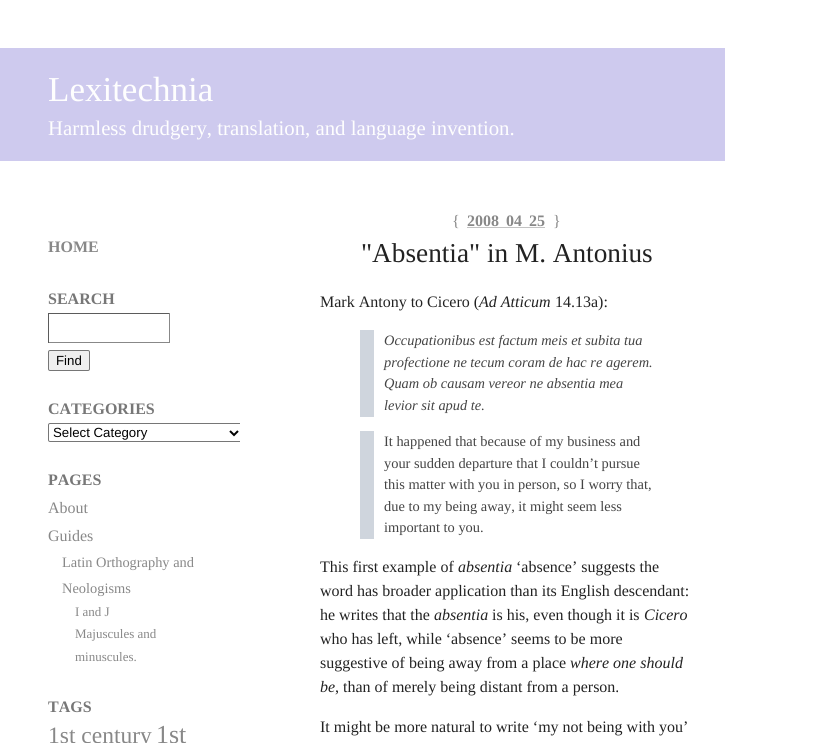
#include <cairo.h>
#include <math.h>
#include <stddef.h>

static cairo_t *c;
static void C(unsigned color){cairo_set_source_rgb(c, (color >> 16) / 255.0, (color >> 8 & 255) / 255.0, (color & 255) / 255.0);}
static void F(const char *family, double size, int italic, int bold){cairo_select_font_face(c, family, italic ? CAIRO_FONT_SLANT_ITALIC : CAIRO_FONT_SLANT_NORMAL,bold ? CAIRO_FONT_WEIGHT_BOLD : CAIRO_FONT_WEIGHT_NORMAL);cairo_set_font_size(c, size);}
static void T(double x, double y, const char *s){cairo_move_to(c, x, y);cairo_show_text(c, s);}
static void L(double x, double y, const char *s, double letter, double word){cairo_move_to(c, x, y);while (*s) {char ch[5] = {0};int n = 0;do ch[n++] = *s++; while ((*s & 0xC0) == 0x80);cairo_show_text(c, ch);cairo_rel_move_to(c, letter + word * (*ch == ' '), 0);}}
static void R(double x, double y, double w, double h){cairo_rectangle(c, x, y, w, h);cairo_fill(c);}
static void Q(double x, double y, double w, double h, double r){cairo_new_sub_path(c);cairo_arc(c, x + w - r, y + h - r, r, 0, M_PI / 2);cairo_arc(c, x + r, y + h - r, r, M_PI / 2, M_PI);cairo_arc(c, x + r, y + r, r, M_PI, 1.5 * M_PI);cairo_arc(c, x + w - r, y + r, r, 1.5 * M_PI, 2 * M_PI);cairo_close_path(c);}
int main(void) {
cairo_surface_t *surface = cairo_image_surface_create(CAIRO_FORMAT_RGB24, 821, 743);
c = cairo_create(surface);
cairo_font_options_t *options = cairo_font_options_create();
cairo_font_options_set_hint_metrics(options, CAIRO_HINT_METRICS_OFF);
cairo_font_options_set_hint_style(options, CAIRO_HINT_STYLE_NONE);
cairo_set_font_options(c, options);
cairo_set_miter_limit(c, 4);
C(0xffffff);
cairo_paint(c);
C(0xcecaee);
R(0,48,725,113);
F("Liberation Serif",35,0,0);
C(0xfefefe);
T(48,101,"Lexitechnia");
F("Liberation Serif",20.8,0,0);
T(48,135,"Harmless drudgery, translation, and language invention.");
F("Liberation Serif",16,0,1);
C(0x888888);
T(48,252,"HOME");
C(0x777777);
T(48,304,"SEARCH");
C(0x5b5b5b);
R(48,313,122,1);
C(0x888888);
R(169,313,1,30);
R(48,342,122,1);
C(0x5b5b5b);
R(48,313,1,30);
C(0xefefef);
Q(48.5,350.5,41,20,1.5);
cairo_fill_preserve(c);
C(0x767676);
cairo_set_line_width(c,1);
cairo_stroke(c);
F("Liberation Sans",13.25,0,0);
C(0x000000);
T(56,365,"Find");
F("Liberation Serif",16,0,1);
C(0x777777);
T(48,414,"CATEGORIES");
cairo_save(c);
cairo_rectangle(c,0,209,240,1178);
cairo_clip(c);
Q(48.5,423.5,194,18,1.5);
C(0x767676);
cairo_stroke(c);
cairo_restore(c);
cairo_new_path(c);
cairo_move_to(c,230,431);
cairo_line_to(c,234,435);
cairo_line_to(c,238,431);
C(0x000000);
cairo_set_line_width(c,2);
cairo_stroke(c);
F("Liberation Sans",13.25,0,0);
T(53,437,"Select Category");
F("Liberation Serif",16,0,1);
C(0x777777);
T(48,485,"PAGES");
F("Liberation Serif",16,0,0);
C(0x888888);
T(48,513,"About");
T(48,541,"Guides");
F("Liberation Serif",14.4,0,0);
T(62,567,"Latin Orthography and");
T(62,593,"Neologisms");
F("Liberation Serif",13,0,0);
T(75,616,"I and J");
T(75,638,"Majuscules and");
T(75,661,"minuscules.");
F("Liberation Serif",16,0,1);
C(0x777777);
T(48,712,"TAGS");
F("Liberation Serif",23.5,0,0);
C(0x888888);
T(48,743,"1st century");
F("Liberation Serif",26,0,0);
T(156,743,"1st");
F("Liberation Serif",16,0,0);
T(452,226,"{");
F("Liberation Serif",16,0,1);
L(467,226,"2008 04 25",0,3);
cairo_new_path(c);
cairo_move_to(c,467.5,227.5);
cairo_line_to(c,545.5,227.5);
cairo_set_line_width(c,1);
cairo_set_dash(c,(double[]){1,1},2,0);
cairo_stroke(c);
F("Liberation Serif",16,0,0);
T(553,226,"}");
F("Liberation Serif",27.25,0,0);
C(0x222222);
T(361,262,"\"Absentia\" in M. Antonius");
F("Liberation Serif",16,0,0);
T(320,307,"Mark Antony to Cicero (");
F("Liberation Serif",16,1,0);
T(479,307,"Ad Atticum");
F("Liberation Serif",16,0,0);
T(555,307,"14.13a):");
C(0xcfd5dd);
R(360,330,14,87);
F("Liberation Serif",14.4,1,0);
C(0x444444);
T(384,345,"Occupationibus est factum meis et subita tua");
T(384,367,"profectione ne tecum coram de hac re agerem.");
T(384,388,"Quam ob causam vereor ne absentia mea");
T(384,410,"levior sit apud te.");
C(0xcfd5dd);
R(360,431,14,108);
F("Liberation Serif",14.4,0,0);
C(0x444444);
T(384,446,"It happened that because of my business and");
T(384,468,"your sudden departure that I couldn’t pursue");
T(384,489,"this matter with you in person, so I worry that,");
T(384,511,"due to my being away, it might seem less");
T(384,532,"important to you.");
F("Liberation Serif",16,0,0);
C(0x222222);
T(320,572,"This first example of");
F("Liberation Serif",16,1,0);
T(458,572,"absentia");
F("Liberation Serif",16,0,0);
T(516,572,"‘absence’ suggests the");
T(320,596,"word has broader application than its English descendant:");
T(320,620,"he writes that the");
F("Liberation Serif",16,1,0);
T(434,620,"absentia");
F("Liberation Serif",16,0,0);
T(492,620,"is his, even though it is");
F("Liberation Serif",16,1,0);
T(644,620,"Cicero");
F("Liberation Serif",16,0,0);
T(320,644,"who has left, while ‘absence’ seems to be more");
T(320,668,"suggestive of being away from a place");
F("Liberation Serif",16,1,0);
T(570,668,"where one should");
T(320,692,"be");
F("Liberation Serif",16,0,0);
T(335,692,", than of merely being distant from a person.");
T(320,732,"It might be more natural to write ‘my not being with you’");
cairo_surface_write_to_png(surface, "o.png");
cairo_font_options_destroy(options);
cairo_destroy(c);
cairo_surface_destroy(surface);
return 0;
}
